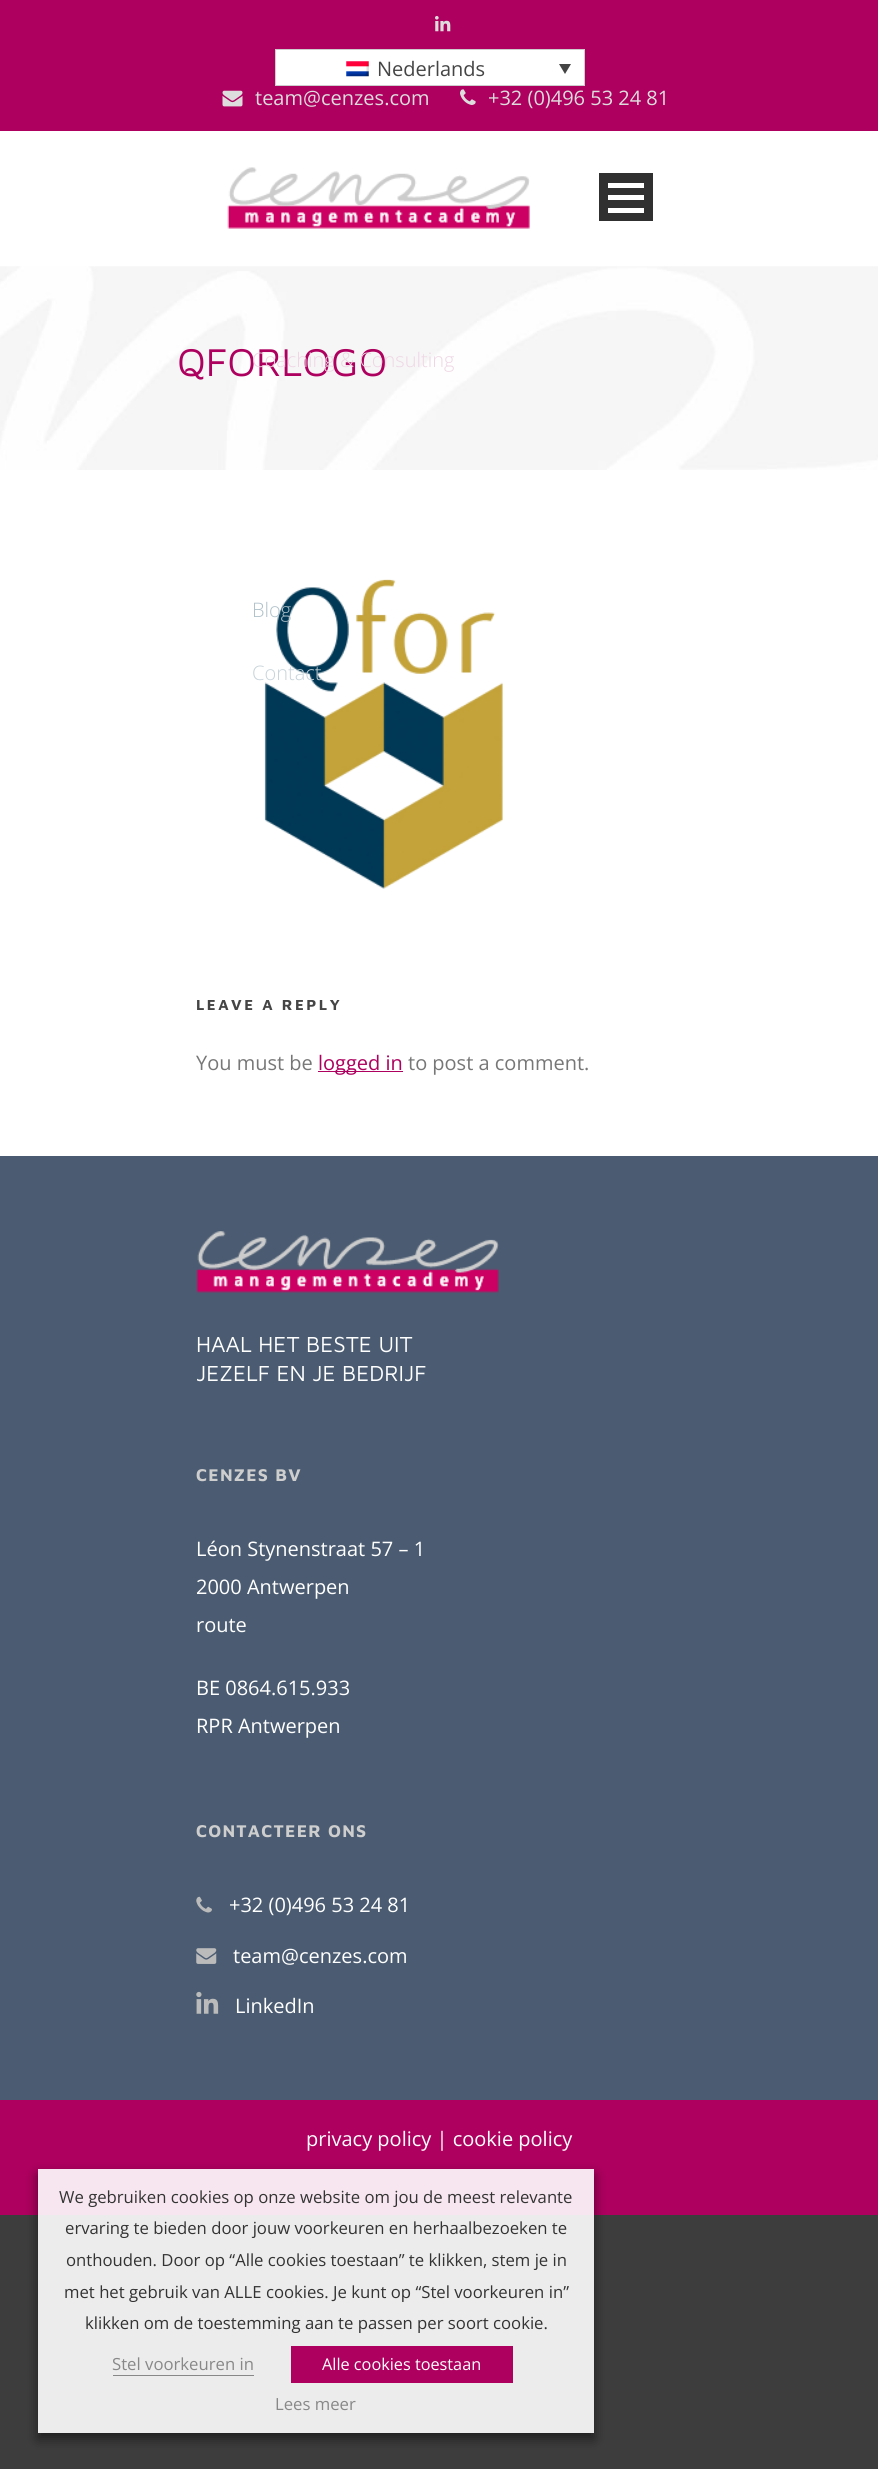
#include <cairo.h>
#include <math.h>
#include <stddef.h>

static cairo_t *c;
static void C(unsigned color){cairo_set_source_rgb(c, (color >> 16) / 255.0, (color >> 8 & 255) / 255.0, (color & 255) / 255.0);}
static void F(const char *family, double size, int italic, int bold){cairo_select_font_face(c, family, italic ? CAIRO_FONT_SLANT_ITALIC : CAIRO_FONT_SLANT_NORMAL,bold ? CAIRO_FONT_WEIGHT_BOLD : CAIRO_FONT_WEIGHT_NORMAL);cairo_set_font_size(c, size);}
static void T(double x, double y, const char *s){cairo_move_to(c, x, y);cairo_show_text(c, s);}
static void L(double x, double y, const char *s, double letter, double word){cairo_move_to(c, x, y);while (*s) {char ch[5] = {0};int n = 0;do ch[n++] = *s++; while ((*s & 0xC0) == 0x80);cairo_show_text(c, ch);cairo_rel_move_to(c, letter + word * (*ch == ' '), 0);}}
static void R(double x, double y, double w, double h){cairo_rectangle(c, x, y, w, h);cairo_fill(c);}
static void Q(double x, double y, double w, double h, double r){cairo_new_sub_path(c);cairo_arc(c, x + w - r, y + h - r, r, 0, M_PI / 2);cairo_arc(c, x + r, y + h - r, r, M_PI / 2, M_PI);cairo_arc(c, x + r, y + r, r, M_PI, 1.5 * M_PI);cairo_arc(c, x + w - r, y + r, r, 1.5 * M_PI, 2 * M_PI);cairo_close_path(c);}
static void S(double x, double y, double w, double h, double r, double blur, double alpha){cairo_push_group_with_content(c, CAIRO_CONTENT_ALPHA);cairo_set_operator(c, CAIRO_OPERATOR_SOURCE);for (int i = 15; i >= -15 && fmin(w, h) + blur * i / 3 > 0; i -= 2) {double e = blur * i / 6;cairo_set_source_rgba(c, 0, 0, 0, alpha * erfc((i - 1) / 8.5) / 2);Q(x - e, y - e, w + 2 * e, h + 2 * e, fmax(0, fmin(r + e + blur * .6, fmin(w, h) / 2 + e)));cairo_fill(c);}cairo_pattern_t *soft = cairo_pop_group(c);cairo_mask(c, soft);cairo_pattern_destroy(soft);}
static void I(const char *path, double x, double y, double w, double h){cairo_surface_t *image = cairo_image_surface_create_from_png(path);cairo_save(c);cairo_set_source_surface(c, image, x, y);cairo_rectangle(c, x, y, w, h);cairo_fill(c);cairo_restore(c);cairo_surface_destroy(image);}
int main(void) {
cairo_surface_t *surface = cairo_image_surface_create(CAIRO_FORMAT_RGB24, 878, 2469);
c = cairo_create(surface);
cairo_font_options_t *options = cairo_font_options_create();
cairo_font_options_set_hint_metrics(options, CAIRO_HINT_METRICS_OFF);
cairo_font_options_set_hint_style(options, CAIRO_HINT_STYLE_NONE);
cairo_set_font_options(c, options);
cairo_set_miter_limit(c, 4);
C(0x3d3d3d);
cairo_paint(c);
C(0xffffff);
R(0,131,878,1025);
C(0xae005f);
R(0,0,878,131);
I("1.png",435,16,16,16);
C(0xffffff);
cairo_rectangle(c,275.5,49.5,309,36);
cairo_fill_preserve(c);
C(0xcdcdcd);
cairo_set_line_width(c,1);
cairo_stroke(c);
I("2.png",346,61,23,16);
F("Open Sans",20,0,0);
C(0x454545);
T(377,76,"Nederlands");
C(0x444444);
cairo_new_path(c);
cairo_move_to(c,559,64);
cairo_line_to(c,571,64);
cairo_line_to(c,565,74);
cairo_close_path(c);
cairo_fill(c);
I("3.png",222,90,21,17);
C(0xdddddd);
T(255,105,"team@cenzes.com");
I("4.png",460,89,16,16);
T(488,105,"+32 (0)496 53 24 81");
I("5.png",227,167,303,62);
C(0x303030);
R(599,173,54,48);
C(0xffffff);
R(608,208,36,5);
R(608,195,36,5);
R(608,183,36,5);
I("6.png",0,266,878,204);
F("Maven Pro",40,0,0);
C(0xae005f);
T(177,376,"QFORLOGO");
F("Open Sans Light",20,0,0);
C(0xeed6e3);
T(252,367,"Coaching & Consulting");
I("7.png",264,579,239,310);
C(0xb0c1ca);
T(252,617,"Blog");
C(0xc8d4da);
T(252,680,"Contact");
F("Maven Pro",15,0,1);
C(0x454545);
L(196,1010,"LEAVE A REPLY",2.5,0);
F("Open Sans",20,0,0);
C(0x777777);
T(196,1070,"You must be");
C(0xae005f);
R(318,1071,85,1);
T(318,1070,"logged in");
C(0x777777);
T(408,1070,"to post a comment.");
C(0x4b5c72);
R(0,1156,878,944);
I("8.png",196,1231,303,62);
F("Maven Pro",22.5,0,0);
C(0xffffff);
T(196,1352,"HAAL HET BESTE UIT");
T(196,1381,"JEZELF EN JE BEDRIJF");
F("Maven Pro",17.5,0,1);
C(0xcecece);
L(196,1481,"CENZES BV",1.25,0);
F("Open Sans",20,0,0);
C(0xffffff);
T(196,1556,"Léon Stynenstraat 57 – 1");
T(196,1594,"2000 Antwerpen");
T(196,1632,"route");
T(196,1695,"BE 0864.615.933");
T(196,1733,"RPR Antwerpen");
F("Maven Pro",17.5,0,1);
C(0xcecece);
L(196,1837,"CONTACTEER ONS",1.25,0);
I("9.png",196,1896,16,17);
F("Open Sans",20,0,0);
C(0xffffff);
T(229,1912,"+32 (0)496 53 24 81");
I("10.png",196,1948,21,16);
T(233,1963,"team@cenzes.com");
I("11.png",196,1991,23,23);
T(235,2013,"LinkedIn");
C(0xae005f);
R(0,2100,878,115);
C(0xffffff);
T(306,2146,"privacy policy | cookie policy");
cairo_save(c);
cairo_set_fill_rule(c,CAIRO_FILL_RULE_EVEN_ODD);
cairo_new_path(c);
cairo_move_to(c,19,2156);
cairo_line_to(c,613,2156);
cairo_line_to(c,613,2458);
cairo_line_to(c,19,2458);
cairo_close_path(c);
cairo_move_to(c,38,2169);
cairo_line_to(c,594,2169);
cairo_line_to(c,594,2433);
cairo_line_to(c,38,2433);
cairo_close_path(c);
cairo_clip(c);
C(0x000000);
S(38,2175,556,264,0,6,.5);
cairo_restore(c);
cairo_set_source_rgba(c,1,1,1,0.9);
R(38,2169,556,264);
F("Open Sans",16.7,0,0);
C(0x333333);
T(59,2203,"We gebruiken cookies op onze website om jou de meest relevante");
T(65,2234,"ervaring te bieden door jouw voorkeuren en herhaalbezoeken te");
T(66,2266,"onthouden. Door op “Alle cookies toestaan” te klikken, stem je in");
T(64,2298,"met het gebruik van ALLE cookies. Je kunt op “Stel voorkeuren in”");
T(85,2329,"klikken om de toestemming aan te passen per soort cookie.");
C(0x898888);
T(112,2370,"Stel voorkeuren in");
R(113,2375,141,1);
C(0xae005f);
R(291,2346,222,37);
F("Open Sans",16.25,0,0);
C(0xffffff);
T(322,2370,"Alle cookies toestaan");
F("Open Sans",16.7,0,0);
C(0x898888);
T(275,2410,"Lees meer");
cairo_surface_write_to_png(surface, "o.png");
cairo_font_options_destroy(options);
cairo_destroy(c);
cairo_surface_destroy(surface);
return 0;
}
